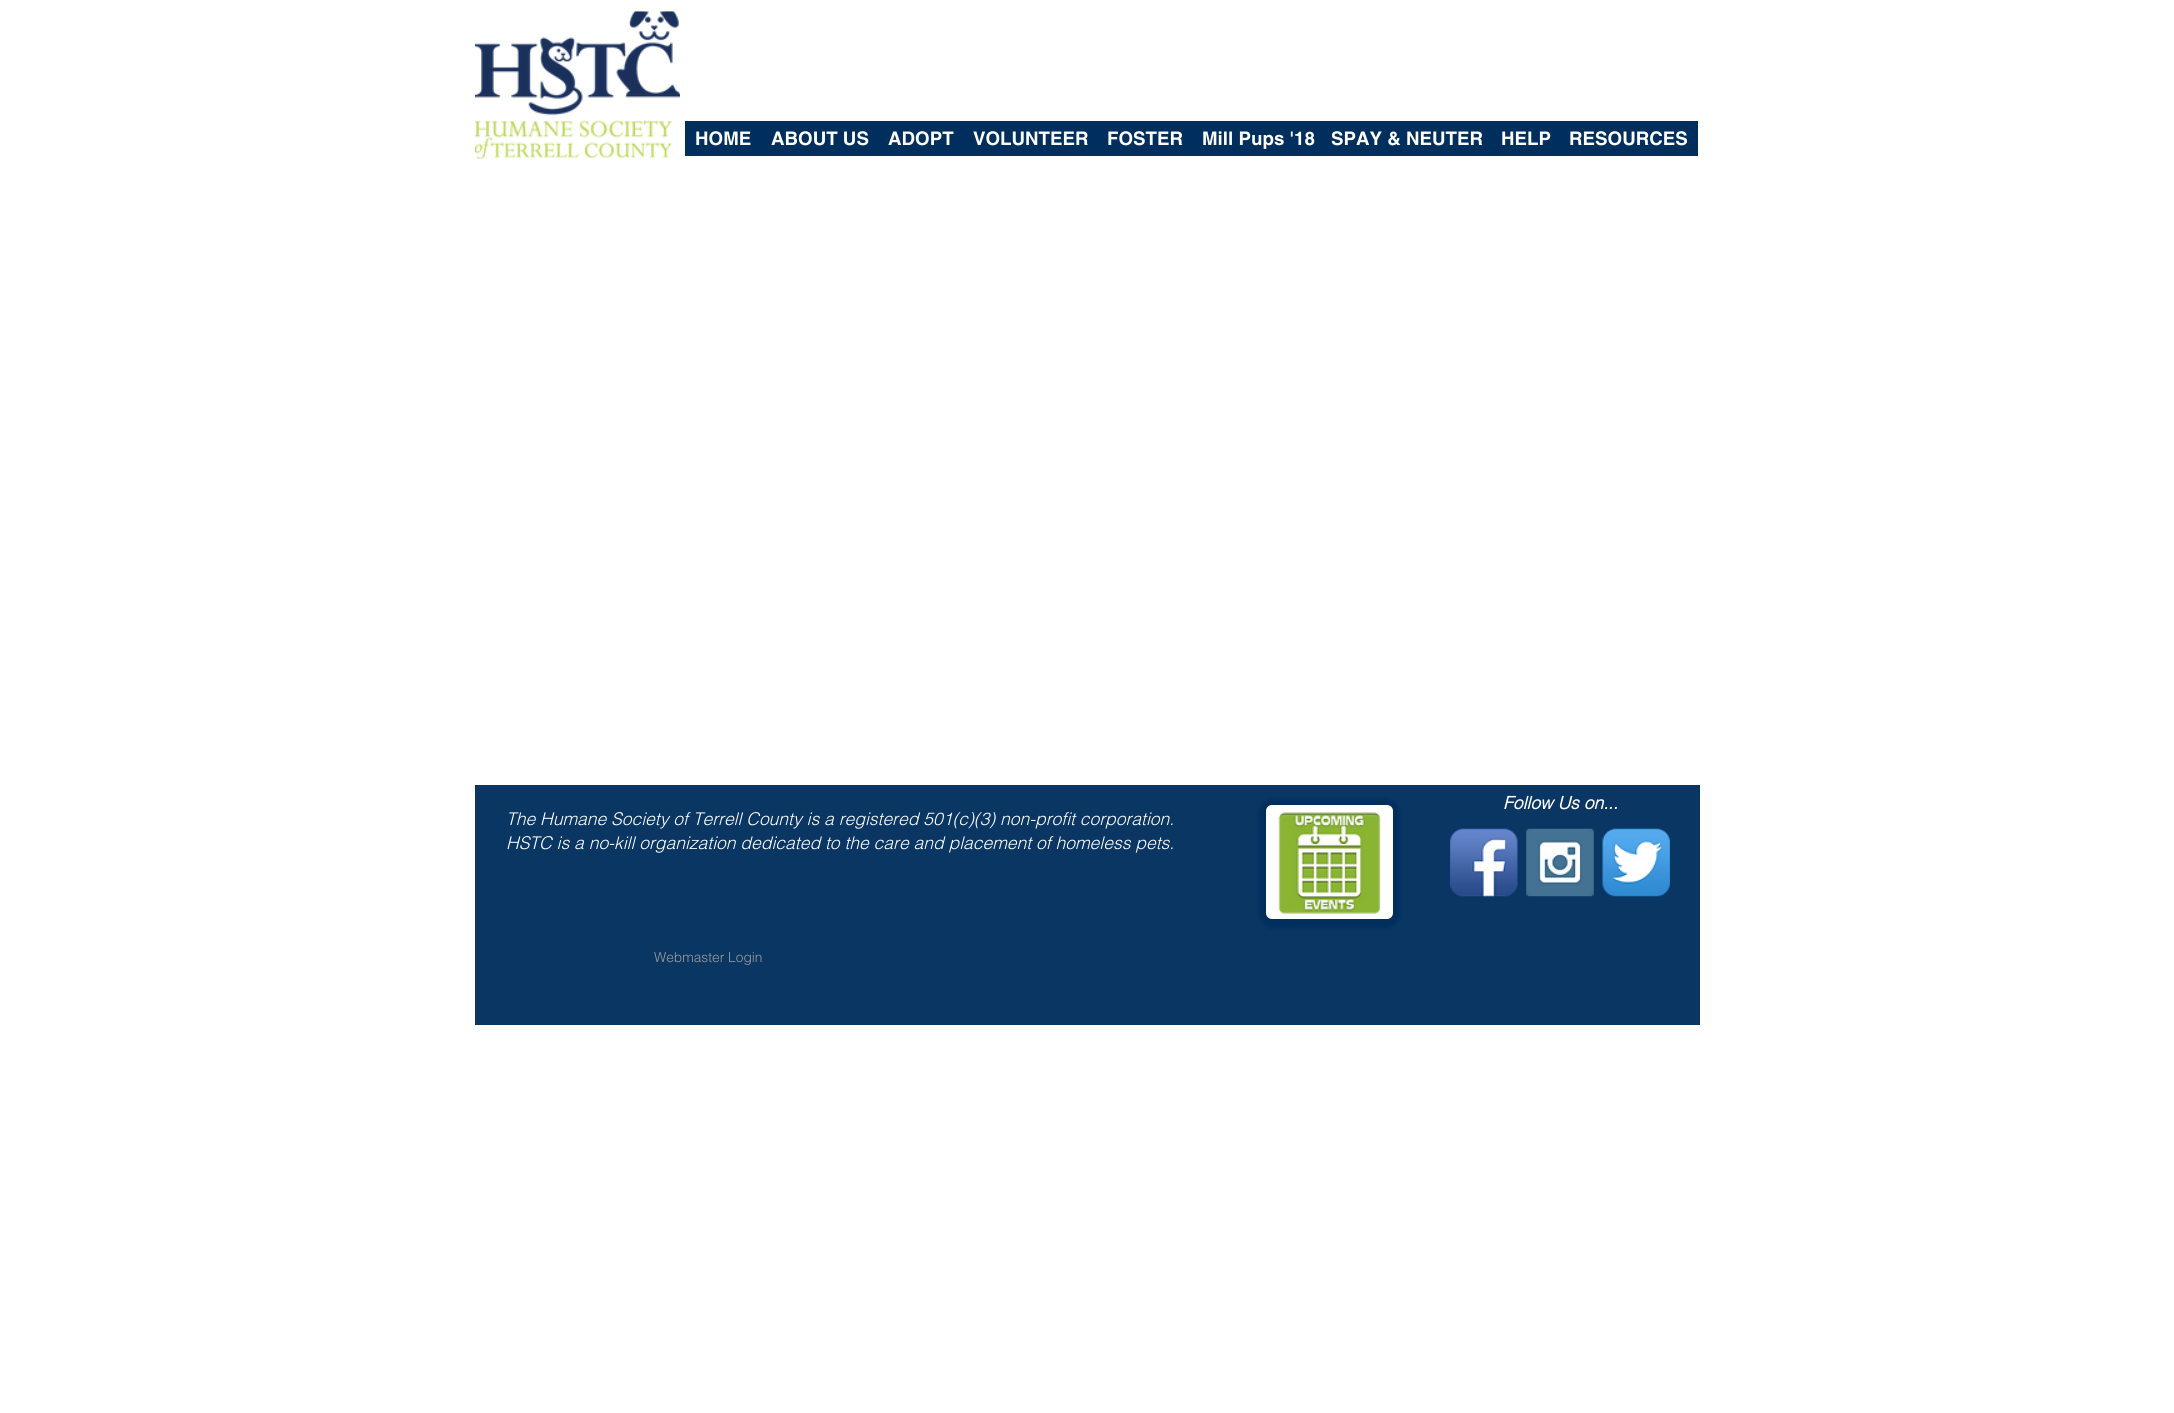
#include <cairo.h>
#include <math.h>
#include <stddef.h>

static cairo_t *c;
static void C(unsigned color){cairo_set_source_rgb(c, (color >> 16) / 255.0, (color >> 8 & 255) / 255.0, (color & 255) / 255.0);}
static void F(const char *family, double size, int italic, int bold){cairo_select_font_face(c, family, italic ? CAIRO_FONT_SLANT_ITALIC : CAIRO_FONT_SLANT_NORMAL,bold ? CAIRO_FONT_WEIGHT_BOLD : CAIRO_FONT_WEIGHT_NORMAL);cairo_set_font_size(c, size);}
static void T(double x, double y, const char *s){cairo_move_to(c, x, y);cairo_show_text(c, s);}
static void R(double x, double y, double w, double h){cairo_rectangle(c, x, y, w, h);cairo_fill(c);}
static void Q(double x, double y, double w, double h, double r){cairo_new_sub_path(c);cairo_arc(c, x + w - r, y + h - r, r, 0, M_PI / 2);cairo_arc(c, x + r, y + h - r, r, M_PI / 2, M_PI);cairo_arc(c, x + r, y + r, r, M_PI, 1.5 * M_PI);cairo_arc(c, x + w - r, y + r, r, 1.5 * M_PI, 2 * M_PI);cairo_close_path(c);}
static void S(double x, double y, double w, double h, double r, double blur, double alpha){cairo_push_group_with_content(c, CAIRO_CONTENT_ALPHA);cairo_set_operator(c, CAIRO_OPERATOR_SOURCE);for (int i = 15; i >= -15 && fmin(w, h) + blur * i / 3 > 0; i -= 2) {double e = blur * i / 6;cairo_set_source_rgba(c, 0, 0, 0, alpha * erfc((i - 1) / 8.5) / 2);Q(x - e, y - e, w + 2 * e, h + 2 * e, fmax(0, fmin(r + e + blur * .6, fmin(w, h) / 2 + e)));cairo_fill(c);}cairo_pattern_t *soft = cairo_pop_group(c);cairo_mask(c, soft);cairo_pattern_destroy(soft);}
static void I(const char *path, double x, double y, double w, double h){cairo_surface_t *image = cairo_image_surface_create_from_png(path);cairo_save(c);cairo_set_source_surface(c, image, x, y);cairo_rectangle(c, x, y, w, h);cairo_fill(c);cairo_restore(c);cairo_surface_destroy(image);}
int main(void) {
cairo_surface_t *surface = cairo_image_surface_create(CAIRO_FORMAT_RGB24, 2174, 1413);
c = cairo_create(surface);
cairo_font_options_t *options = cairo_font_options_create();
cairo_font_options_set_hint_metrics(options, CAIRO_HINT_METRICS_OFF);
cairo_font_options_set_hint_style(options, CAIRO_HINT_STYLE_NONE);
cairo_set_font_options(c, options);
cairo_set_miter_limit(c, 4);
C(0xffffff);
cairo_paint(c);
I("1.png",475,11,205,148);
C(0x002e5d);
R(685,121,1013,35);
F("helvetica",18.75,0,1);
C(0xffffff);
T(695,145,"HOME");
T(771,145,"ABOUT US");
T(888,145,"ADOPT");
T(973,145,"VOLUNTEER");
T(1107,145,"FOSTER");
T(1202,145,"Mill Pups '18");
T(1331,145,"SPAY & NEUTER");
T(1501,145,"HELP");
T(1569,145,"RESOURCES");
C(0x0a3664);
R(475,785,1225,240);
C(0x002e5d);
S(1259,799,141,129,14,2,1);
C(0xffffff);
Q(1266,805,127,114,6);
cairo_fill(c);
I("2.png",1278,812,103,102);
F("helvetica",17.5,1,1);
T(1503,809,"Follow Us on...");
F("helvetica Light",17.5,1,0);
T(506,825,"The Humane Society of Terrell County is a registered 501(c)(3) non-profit corporation.");
T(506,849,"HSTC is a no-kill organization dedicated to the care and placement of homeless pets.");
I("3.png",1450,828,68,69);
I("4.png",1526,828,68,69);
I("5.png",1602,828,68,69);
F("helvetica Light",13.75,0,0);
C(0x9c9c9c);
T(654,962,"Webmaster Login");
cairo_surface_write_to_png(surface, "o.png");
cairo_font_options_destroy(options);
cairo_destroy(c);
cairo_surface_destroy(surface);
return 0;
}
